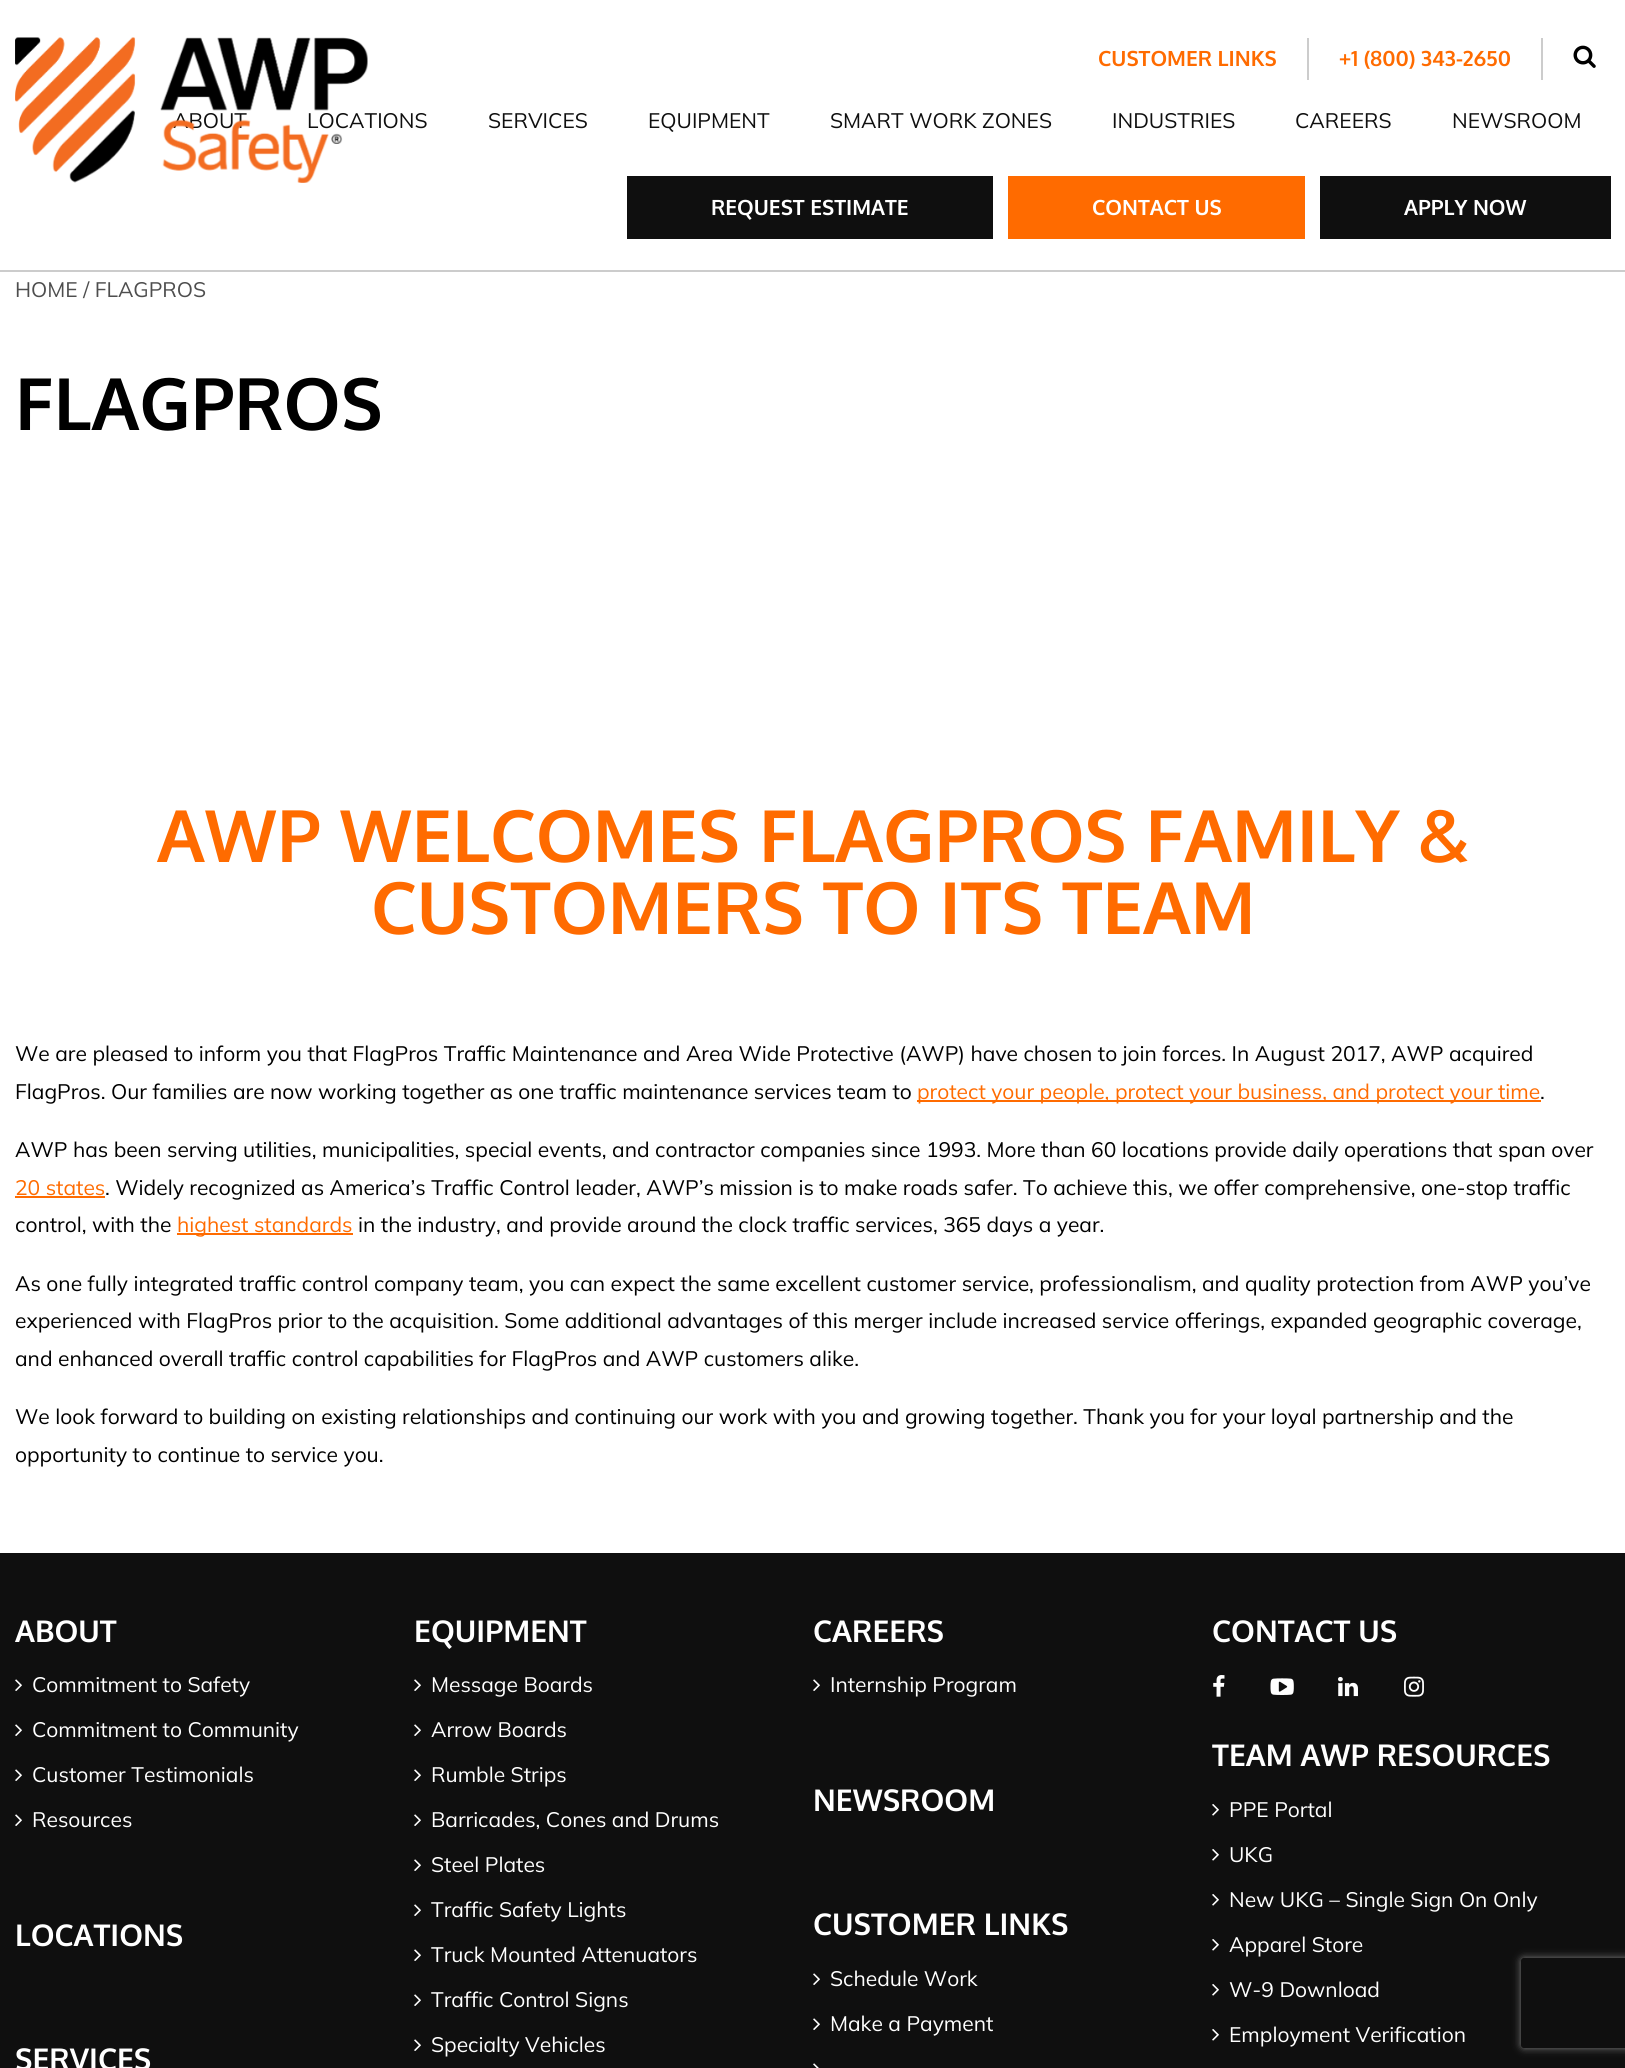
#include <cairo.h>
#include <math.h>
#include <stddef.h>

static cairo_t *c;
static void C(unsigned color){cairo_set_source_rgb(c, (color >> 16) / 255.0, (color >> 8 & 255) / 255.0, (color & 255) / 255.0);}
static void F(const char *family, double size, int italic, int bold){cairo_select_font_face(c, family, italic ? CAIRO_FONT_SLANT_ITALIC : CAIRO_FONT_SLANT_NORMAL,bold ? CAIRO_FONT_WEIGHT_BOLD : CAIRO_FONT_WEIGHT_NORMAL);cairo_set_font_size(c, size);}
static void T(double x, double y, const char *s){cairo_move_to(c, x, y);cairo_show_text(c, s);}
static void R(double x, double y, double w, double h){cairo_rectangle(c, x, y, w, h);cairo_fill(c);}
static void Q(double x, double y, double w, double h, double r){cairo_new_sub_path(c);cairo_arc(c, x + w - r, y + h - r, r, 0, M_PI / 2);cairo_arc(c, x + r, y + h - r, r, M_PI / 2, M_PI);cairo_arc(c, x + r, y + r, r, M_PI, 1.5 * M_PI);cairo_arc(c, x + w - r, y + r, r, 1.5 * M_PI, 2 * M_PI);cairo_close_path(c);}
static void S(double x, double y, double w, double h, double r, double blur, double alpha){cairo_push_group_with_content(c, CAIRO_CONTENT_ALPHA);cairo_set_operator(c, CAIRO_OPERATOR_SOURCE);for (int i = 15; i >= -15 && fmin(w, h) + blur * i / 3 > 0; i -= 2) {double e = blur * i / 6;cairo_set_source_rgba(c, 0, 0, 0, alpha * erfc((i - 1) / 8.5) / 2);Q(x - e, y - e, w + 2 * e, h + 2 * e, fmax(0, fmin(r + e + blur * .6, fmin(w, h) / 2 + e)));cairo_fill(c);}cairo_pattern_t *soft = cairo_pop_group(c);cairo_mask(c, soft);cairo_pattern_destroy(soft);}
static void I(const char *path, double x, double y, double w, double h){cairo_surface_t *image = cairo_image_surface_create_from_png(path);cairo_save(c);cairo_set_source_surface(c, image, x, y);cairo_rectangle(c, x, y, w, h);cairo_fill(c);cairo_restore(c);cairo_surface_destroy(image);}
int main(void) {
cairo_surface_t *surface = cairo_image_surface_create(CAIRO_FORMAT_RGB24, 1625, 2068);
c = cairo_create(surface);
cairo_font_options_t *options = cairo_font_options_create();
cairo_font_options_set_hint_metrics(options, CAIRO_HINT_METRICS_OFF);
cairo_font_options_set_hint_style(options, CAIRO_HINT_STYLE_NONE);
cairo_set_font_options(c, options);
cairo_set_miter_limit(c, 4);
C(0xffffff);
cairo_paint(c);
F("Mulish",21,0,0);
C(0x0f0f0f);
T(173,128,"ABOUT");
T(307,128,"LOCATIONS");
I("1.png",15,37,353,146);
C(0xcccccc);
R(1307,38,2,42);
F("Oxygen",21,0,1);
C(0xff6b00);
T(1098,66,"CUSTOMER LINKS");
T(1339,66,"+1 (800) 343-2650");
C(0xcccccc);
R(1541,38,2,42);
I("2.png",1573,45,23,23);
F("Mulish",21,0,0);
C(0x0f0f0f);
T(488,128,"SERVICES");
T(648,128,"EQUIPMENT");
T(830,128,"SMART WORK ZONES");
T(1112,128,"INDUSTRIES");
T(1295,128,"CAREERS");
T(1452,128,"NEWSROOM");
R(627,176,366,63);
F("Oxygen",21,0,1);
C(0xffffff);
T(711,215,"REQUEST ESTIMATE");
C(0xff6b00);
R(1008,176,297,63);
C(0xffffff);
T(1092,215,"CONTACT US");
C(0x0f0f0f);
R(1320,176,291,63);
C(0xffffff);
T(1404,215,"APPLY NOW");
C(0xcccccc);
R(0,270,1625,2);
F("Mulish",21,0,0);
C(0x4e4e4e);
T(15,297,"HOME / FLAGPROS");
F("Oxygen",72,0,1);
C(0x000000);
T(15,430,"FLAGPROS");
C(0xff6b00);
T(157,862,"AWP WELCOMES FLAGPROS FAMILY &");
T(371,934,"CUSTOMERS TO ITS TEAM");
F("Mulish",21,0,0);
C(0x000000);
T(15,1061,"We are pleased to inform you that FlagPros Traffic Maintenance and Area Wide Protective (AWP) have chosen to join forces. In August 2017, AWP acquired");
T(15,1099,"FlagPros. Our families are now working together as one traffic maintenance services team to");
C(0xff6b00);
R(917,1100,624,2);
T(917,1099,"protect your people, protect your business, and protect your time");
C(0x000000);
T(1540,1099,".");
T(15,1157,"AWP has been serving utilities, municipalities, special events, and contractor companies since 1993. More than 60 locations provide daily operations that span over");
C(0xff6b00);
T(15,1195,"20 states");
R(15,1196,90,2);
C(0x000000);
T(105,1195,". Widely recognized as America’s Traffic Control leader, AWP’s mission is to make roads safer. To achieve this, we offer comprehensive, one-stop traffic");
T(15,1232,"control, with the");
C(0xff6b00);
R(177,1233,176,2);
T(177,1232,"highest standards");
C(0x000000);
T(358,1232,"in the industry, and provide around the clock traffic services, 365 days a year.");
T(15,1291,"As one fully integrated traffic control company team, you can expect the same excellent customer service, professionalism, and quality protection from AWP you’ve");
T(15,1328,"experienced with FlagPros prior to the acquisition. Some additional advantages of this merger include increased service offerings, expanded geographic coverage,");
T(15,1366,"and enhanced overall traffic control capabilities for FlagPros and AWP customers alike.");
T(15,1424,"We look forward to building on existing relationships and continuing our work with you and growing together. Thank you for your loyal partnership and the");
T(15,1462,"opportunity to continue to service you.");
C(0x0f0f0f);
R(0,1553,1625,515);
F("Oxygen",30,0,1);
C(0xffffff);
T(15,1642,"ABOUT");
I("3.png",15,1679,7,12);
F("Mulish",21,0,0);
T(32,1692,"Commitment to Safety");
I("3.png",15,1724,7,12);
T(32,1737,"Commitment to Community");
I("3.png",15,1769,7,12);
T(32,1782,"Customer Testimonials");
I("3.png",15,1814,7,12);
T(32,1827,"Resources");
F("Oxygen",30,0,1);
T(15,1946,"LOCATIONS");
T(15,2070,"SERVICES");
T(414,1642,"EQUIPMENT");
I("3.png",414,1679,7,12);
F("Mulish",21,0,0);
T(431,1692,"Message Boards");
I("3.png",414,1724,7,12);
T(431,1737,"Arrow Boards");
I("3.png",414,1769,7,12);
T(431,1782,"Rumble Strips");
I("3.png",414,1814,7,12);
T(431,1827,"Barricades, Cones and Drums");
I("3.png",414,1859,7,12);
T(431,1872,"Steel Plates");
I("3.png",414,1904,7,12);
T(431,1917,"Traffic Safety Lights");
I("3.png",414,1949,7,12);
T(431,1962,"Truck Mounted Attenuators");
I("3.png",414,1994,7,12);
T(431,2007,"Traffic Control Signs");
I("3.png",414,2039,7,12);
T(431,2052,"Specialty Vehicles");
F("Oxygen",30,0,1);
T(813,1642,"CAREERS");
I("3.png",813,1679,7,12);
F("Mulish",21,0,0);
T(830,1692,"Internship Program");
F("Oxygen",30,0,1);
T(813,1811,"NEWSROOM");
T(813,1935,"CUSTOMER LINKS");
I("3.png",813,1973,7,12);
F("Mulish",21,0,0);
T(830,1986,"Schedule Work");
I("3.png",813,2018,7,12);
T(830,2031,"Make a Payment");
I("4.png",813,2063,6,5);
F("Oxygen",30,0,1);
T(1212,1642,"CONTACT US");
I("5.png",1213,1675,12,22);
I("6.png",1270,1678,24,17);
I("7.png",1338,1677,20,20);
I("8.png",1404,1676,20,21);
T(1212,1766,"TEAM AWP RESOURCES");
I("9.png",1212,1804,7,12);
F("Mulish",21,0,0);
T(1229,1817,"PPE Portal");
I("9.png",1212,1849,7,12);
T(1229,1862,"UKG");
I("9.png",1212,1894,7,12);
T(1229,1907,"New UKG – Single Sign On Only");
I("9.png",1212,1939,7,12);
T(1229,1952,"Apparel Store");
I("9.png",1212,1984,7,12);
T(1229,1997,"W-9 Download");
I("9.png",1212,2029,7,12);
T(1229,2042,"Employment Verification");
cairo_save(c);
cairo_set_fill_rule(c,CAIRO_FILL_RULE_EVEN_ODD);
cairo_new_path(c);
cairo_move_to(c,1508,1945);
cairo_line_to(c,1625,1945);
cairo_line_to(c,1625,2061);
cairo_line_to(c,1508,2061);
cairo_close_path(c);
cairo_move_to(c,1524,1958);
cairo_line_to(c,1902,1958);
cairo_curve_to(c,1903.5,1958,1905,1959.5,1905,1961);
cairo_line_to(c,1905,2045);
cairo_curve_to(c,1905,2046.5,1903.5,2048,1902,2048);
cairo_line_to(c,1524,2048);
cairo_curve_to(c,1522.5,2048,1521,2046.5,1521,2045);
cairo_line_to(c,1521,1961);
cairo_curve_to(c,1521,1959.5,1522.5,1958,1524,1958);
cairo_close_path(c);
cairo_clip(c);
C(0x808080);
S(1521,1958,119,90,3,4,1);
cairo_restore(c);
cairo_surface_write_to_png(surface, "o.png");
cairo_font_options_destroy(options);
cairo_destroy(c);
cairo_surface_destroy(surface);
return 0;
}
